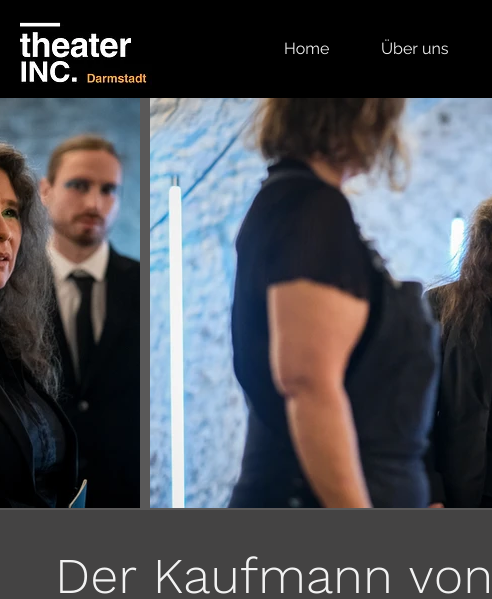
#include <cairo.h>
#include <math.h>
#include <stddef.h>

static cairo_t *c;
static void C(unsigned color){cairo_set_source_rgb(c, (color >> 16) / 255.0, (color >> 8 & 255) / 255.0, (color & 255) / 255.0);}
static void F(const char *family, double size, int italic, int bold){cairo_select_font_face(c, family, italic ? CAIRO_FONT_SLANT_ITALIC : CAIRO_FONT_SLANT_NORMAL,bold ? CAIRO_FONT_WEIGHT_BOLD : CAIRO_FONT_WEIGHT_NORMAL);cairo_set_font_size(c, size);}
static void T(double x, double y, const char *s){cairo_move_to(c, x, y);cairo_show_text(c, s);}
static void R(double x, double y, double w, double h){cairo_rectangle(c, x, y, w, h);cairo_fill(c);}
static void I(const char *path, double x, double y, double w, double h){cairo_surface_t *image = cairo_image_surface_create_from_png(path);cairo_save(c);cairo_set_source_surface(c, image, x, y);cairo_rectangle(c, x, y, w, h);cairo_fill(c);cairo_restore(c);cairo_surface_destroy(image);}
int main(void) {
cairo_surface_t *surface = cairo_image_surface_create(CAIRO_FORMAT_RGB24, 492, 599);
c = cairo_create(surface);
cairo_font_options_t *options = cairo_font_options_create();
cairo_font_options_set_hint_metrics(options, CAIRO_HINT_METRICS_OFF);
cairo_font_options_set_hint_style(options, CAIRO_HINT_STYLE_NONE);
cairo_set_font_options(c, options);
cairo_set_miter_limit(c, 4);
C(0x595858);
cairo_paint(c);
C(0x000000);
R(0,0,492,98);
I("1.png",20,22,132,67);
F("Raleway",16,0,0);
C(0xf2f2f2);
T(284,54,"Home");
T(381,54,"Über uns");
I("2.png",0,98,140,410);
I("3.png",150,98,342,410);
C(0x444343);
R(0,510,492,89);
F("Work Sans Light",50,0,0);
C(0xf2f2f2);
T(55,593,"Der Kaufmann von");
cairo_surface_write_to_png(surface, "o.png");
cairo_font_options_destroy(options);
cairo_destroy(c);
cairo_surface_destroy(surface);
return 0;
}
